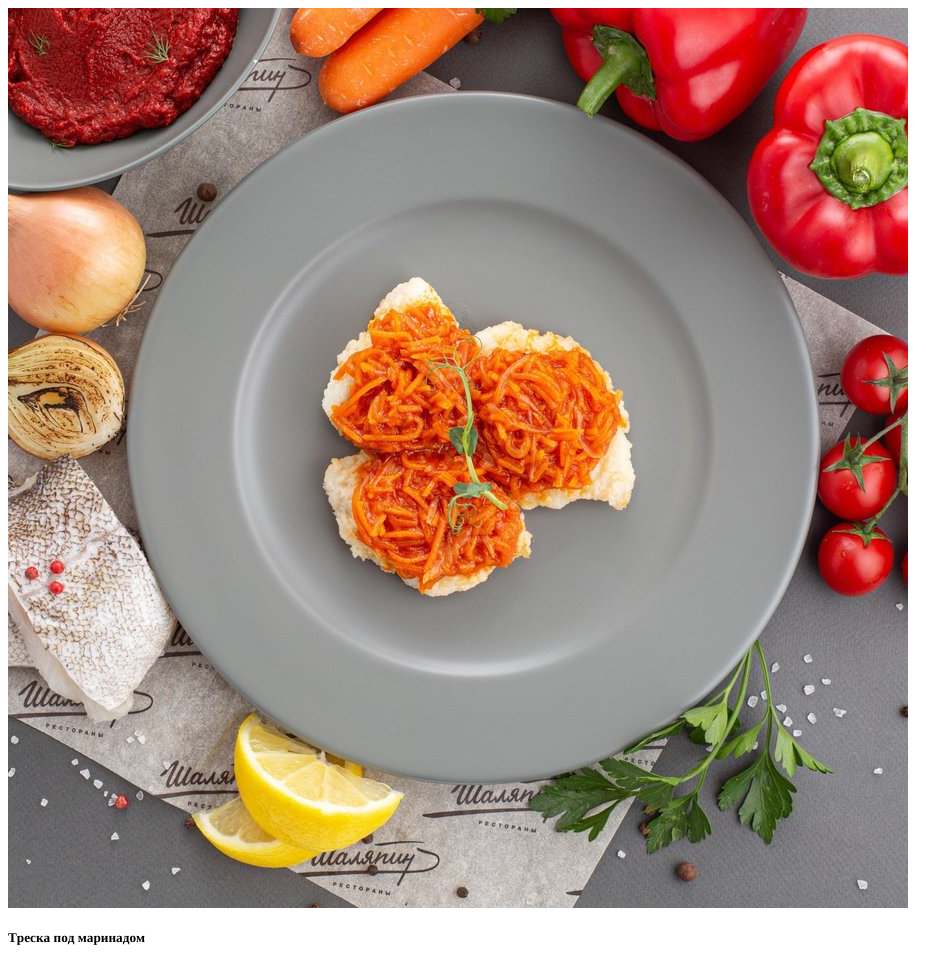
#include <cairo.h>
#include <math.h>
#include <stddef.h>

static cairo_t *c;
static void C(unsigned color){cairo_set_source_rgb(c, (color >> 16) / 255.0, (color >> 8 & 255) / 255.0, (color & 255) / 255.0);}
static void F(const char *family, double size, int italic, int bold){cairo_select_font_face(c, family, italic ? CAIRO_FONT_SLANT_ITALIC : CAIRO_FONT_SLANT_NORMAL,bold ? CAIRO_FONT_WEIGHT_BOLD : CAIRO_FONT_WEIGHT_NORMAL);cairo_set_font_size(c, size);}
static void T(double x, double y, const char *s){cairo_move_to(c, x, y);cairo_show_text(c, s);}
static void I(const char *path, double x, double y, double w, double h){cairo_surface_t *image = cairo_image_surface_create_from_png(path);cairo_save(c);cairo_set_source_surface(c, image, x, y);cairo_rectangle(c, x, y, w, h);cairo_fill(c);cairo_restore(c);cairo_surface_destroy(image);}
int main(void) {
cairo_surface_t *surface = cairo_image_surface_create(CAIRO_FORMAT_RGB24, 926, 972);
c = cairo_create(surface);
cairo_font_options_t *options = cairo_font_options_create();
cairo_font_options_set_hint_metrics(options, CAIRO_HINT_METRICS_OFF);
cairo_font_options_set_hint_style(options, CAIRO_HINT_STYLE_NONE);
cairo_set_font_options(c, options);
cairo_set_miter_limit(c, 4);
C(0xffffff);
cairo_paint(c);
I("1.png",8,8,900,900);
F("Liberation Serif",13.25,0,1);
C(0x000000);
T(8,942,"Треска под маринадом");
cairo_surface_write_to_png(surface, "o.png");
cairo_font_options_destroy(options);
cairo_destroy(c);
cairo_surface_destroy(surface);
return 0;
}
